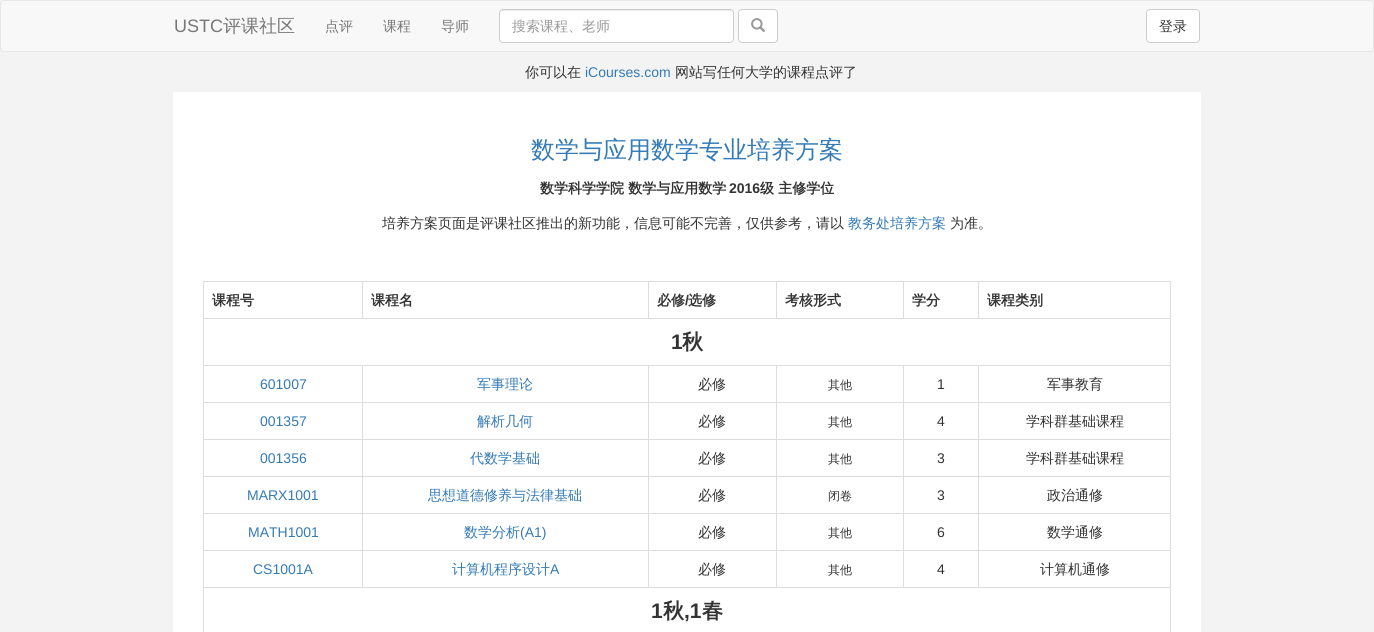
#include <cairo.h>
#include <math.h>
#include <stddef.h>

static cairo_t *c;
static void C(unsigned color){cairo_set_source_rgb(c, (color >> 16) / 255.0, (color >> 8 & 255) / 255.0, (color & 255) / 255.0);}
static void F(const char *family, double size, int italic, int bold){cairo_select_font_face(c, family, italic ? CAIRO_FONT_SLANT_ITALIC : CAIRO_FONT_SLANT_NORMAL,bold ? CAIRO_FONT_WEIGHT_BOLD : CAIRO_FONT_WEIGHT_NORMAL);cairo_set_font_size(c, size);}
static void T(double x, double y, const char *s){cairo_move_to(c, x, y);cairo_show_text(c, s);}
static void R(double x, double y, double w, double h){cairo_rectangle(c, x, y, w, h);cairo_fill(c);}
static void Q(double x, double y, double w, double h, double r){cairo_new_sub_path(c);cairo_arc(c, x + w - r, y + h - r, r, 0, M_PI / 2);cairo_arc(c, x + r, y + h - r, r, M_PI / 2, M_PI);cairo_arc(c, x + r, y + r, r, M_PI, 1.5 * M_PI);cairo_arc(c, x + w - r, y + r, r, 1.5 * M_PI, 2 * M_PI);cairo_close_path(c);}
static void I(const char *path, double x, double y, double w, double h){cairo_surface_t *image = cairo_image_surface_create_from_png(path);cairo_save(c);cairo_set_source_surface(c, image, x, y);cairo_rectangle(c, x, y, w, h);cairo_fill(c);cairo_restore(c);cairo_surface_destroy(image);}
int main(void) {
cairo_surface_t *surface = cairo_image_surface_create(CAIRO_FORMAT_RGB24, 1374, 632);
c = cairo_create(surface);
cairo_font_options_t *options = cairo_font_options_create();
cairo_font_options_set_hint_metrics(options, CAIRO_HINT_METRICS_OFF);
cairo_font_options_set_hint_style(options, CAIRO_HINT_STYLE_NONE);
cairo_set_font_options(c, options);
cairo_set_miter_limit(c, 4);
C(0xf3f3f3);
cairo_paint(c);
C(0xf8f8f8);
Q(.5,.5,1373,51,3.5);
cairo_fill_preserve(c);
C(0xe7e7e7);
cairo_set_line_width(c,1);
cairo_stroke(c);
F("Liberation Sans",18,0,0);
C(0x777777);
T(174,32,"USTC");
F("WenQuanYi Zen Hei Medium",18,0,0);
T(223,32,"评课社区");
F("WenQuanYi Zen Hei Medium",14,0,0);
T(325,31,"点评");
T(383,31,"课程");
T(441,31,"导师");
C(0xffffff);
Q(499,9,235,34,4);
cairo_fill(c);
C(0xececec);
cairo_new_path(c);
cairo_move_to(c,503,11);
cairo_line_to(c,730,11);
cairo_curve_to(c,732,11,733,12,733,14);
cairo_curve_to(c,733,12,732,10,730,10);
cairo_line_to(c,503,10);
cairo_curve_to(c,501,10,500,12,500,14);
cairo_curve_to(c,500,12,501,11,503,11);
cairo_close_path(c);
cairo_fill(c);
Q(499.5,9.5,234,33,3.5);
C(0xcccccc);
cairo_stroke(c);
C(0x999999);
T(512,31,"搜索课程、老师");
C(0xffffff);
Q(738.5,9.5,39,33,3.5);
cairo_fill_preserve(c);
C(0xcccccc);
cairo_stroke(c);
I("1.png",751,18,14,14);
C(0xffffff);
Q(1146.5,9.5,53,33,3.5);
cairo_fill_preserve(c);
C(0xcccccc);
cairo_stroke(c);
C(0x333333);
T(1159,31,"登录");
T(525,77,"你可以在");
F("Liberation Sans",14,0,0);
C(0x337ab7);
T(585,77,"iCourses.com");
F("WenQuanYi Zen Hei Medium",14,0,0);
C(0x333333);
T(675,77,"网站写任何大学的课程点评了");
C(0xffffff);
R(173,92,1028,540);
F("WenQuanYi Zen Hei Medium",24,0,0);
C(0x337ab7);
T(531,158,"数学与应用数学专业培养方案");
F("WenQuanYi Zen Hei",14,0,1);
C(0x333333);
T(540,193,"数学科学学院 数学与应用数学");
F("Liberation Sans",14,0,1);
T(729,193,"2016");
F("WenQuanYi Zen Hei",14,0,1);
T(760,193,"级 主修学位");
F("WenQuanYi Zen Hei Medium",14,0,0);
T(382,228,"培养方案页面是评课社区推出的新功能，信息可能不完善，仅供参考，请以");
C(0x337ab7);
T(848,228,"教务处培养方案");
C(0x333333);
T(950,228,"为准。");
C(0xdddddd);
R(203,281,968,1);
R(1170,281,1,351);
R(203,281,1,351);
F("WenQuanYi Zen Hei",14,0,1);
C(0x333333);
T(212,305,"课程号");
C(0xdddddd);
R(203,318,968,1);
R(362,281,1,38);
C(0x333333);
T(371,305,"课程名");
C(0xdddddd);
R(648,281,1,38);
C(0x333333);
T(657,305,"必修");
F("Liberation Sans",14,0,1);
T(685,305,"/");
F("WenQuanYi Zen Hei",14,0,1);
T(688,305,"选修");
C(0xdddddd);
R(776,281,1,38);
C(0x333333);
T(785,305,"考核形式");
C(0xdddddd);
R(903,281,1,38);
C(0x333333);
T(912,305,"学分");
C(0xdddddd);
R(978,281,1,38);
C(0x333333);
T(987,305,"课程类别");
F("Liberation Sans",21,0,1);
T(671,349,"1");
F("WenQuanYi Zen Hei",21,0,1);
T(682,349,"秋");
C(0xdddddd);
R(978,365,193,1);
R(978,402,193,1);
R(978,439,193,1);
R(978,476,193,1);
R(978,513,193,1);
R(978,550,193,1);
R(203,587,968,1);
R(978,550,1,38);
R(903,550,76,1);
R(978,513,1,38);
R(903,513,76,1);
R(978,476,1,38);
R(903,476,76,1);
R(978,439,1,38);
R(903,439,76,1);
R(978,402,1,38);
R(903,402,76,1);
R(978,365,1,38);
R(903,365,76,1);
R(903,550,1,38);
R(776,550,128,1);
R(903,513,1,38);
R(776,513,128,1);
R(903,476,1,38);
R(776,476,128,1);
R(903,439,1,38);
R(776,439,128,1);
R(903,402,1,38);
R(776,402,128,1);
R(903,365,1,38);
R(776,365,128,1);
R(776,550,1,38);
R(648,550,129,1);
R(776,513,1,38);
R(648,513,129,1);
R(776,476,1,38);
R(648,476,129,1);
R(776,439,1,38);
R(648,439,129,1);
R(776,402,1,38);
R(648,402,129,1);
R(776,365,1,38);
R(648,365,129,1);
R(648,550,1,38);
R(362,550,287,1);
R(648,513,1,38);
R(362,513,287,1);
R(648,476,1,38);
R(362,476,287,1);
R(648,439,1,38);
R(362,439,287,1);
R(648,402,1,38);
R(362,402,287,1);
R(648,365,1,38);
R(362,365,287,1);
R(362,550,1,38);
R(203,550,160,1);
R(362,513,1,38);
R(203,513,160,1);
R(362,476,1,38);
R(203,476,160,1);
R(362,439,1,38);
R(203,439,160,1);
R(362,402,1,38);
R(203,402,160,1);
R(362,365,1,38);
R(203,365,160,1);
F("Liberation Sans",14,0,0);
C(0x337ab7);
T(260,389,"601007");
F("WenQuanYi Zen Hei Medium",14,0,0);
T(477,389,"军事理论");
C(0x333333);
T(698,389,"必修");
F("WenQuanYi Zen Hei Medium",12,0,0);
T(828,389,"其他");
F("Liberation Sans",14,0,0);
T(937,389,"1");
F("WenQuanYi Zen Hei Medium",14,0,0);
T(1047,389,"军事教育");
F("Liberation Sans",14,0,0);
C(0x337ab7);
T(260,426,"001357");
F("WenQuanYi Zen Hei Medium",14,0,0);
T(477,426,"解析几何");
C(0x333333);
T(698,426,"必修");
F("WenQuanYi Zen Hei Medium",12,0,0);
T(828,426,"其他");
F("Liberation Sans",14,0,0);
T(937,426,"4");
F("WenQuanYi Zen Hei Medium",14,0,0);
T(1026,426,"学科群基础课程");
F("Liberation Sans",14,0,0);
C(0x337ab7);
T(260,463,"001356");
F("WenQuanYi Zen Hei Medium",14,0,0);
T(470,463,"代数学基础");
C(0x333333);
T(698,463,"必修");
F("WenQuanYi Zen Hei Medium",12,0,0);
T(828,463,"其他");
F("Liberation Sans",14,0,0);
T(937,463,"3");
F("WenQuanYi Zen Hei Medium",14,0,0);
T(1026,463,"学科群基础课程");
F("Liberation Sans",14,0,0);
C(0x337ab7);
T(247,500,"MARX1001");
F("WenQuanYi Zen Hei Medium",14,0,0);
T(428,500,"思想道德修养与法律基础");
C(0x333333);
T(698,500,"必修");
F("WenQuanYi Zen Hei Medium",12,0,0);
T(828,500,"闭卷");
F("Liberation Sans",14,0,0);
T(937,500,"3");
F("WenQuanYi Zen Hei Medium",14,0,0);
T(1047,500,"政治通修");
F("Liberation Sans",14,0,0);
C(0x337ab7);
T(248,537,"MATH1001");
F("WenQuanYi Zen Hei Medium",14,0,0);
T(464,537,"数学分析");
F("Liberation Sans",14,0,0);
T(520,537,"(A1)");
F("WenQuanYi Zen Hei Medium",14,0,0);
C(0x333333);
T(698,537,"必修");
F("WenQuanYi Zen Hei Medium",12,0,0);
T(828,537,"其他");
F("Liberation Sans",14,0,0);
T(937,537,"6");
F("WenQuanYi Zen Hei Medium",14,0,0);
T(1047,537,"数学通修");
F("Liberation Sans",14,0,0);
C(0x337ab7);
T(253,574,"CS1001A");
F("WenQuanYi Zen Hei Medium",14,0,0);
T(452,574,"计算机程序设计");
F("Liberation Sans",14,0,0);
T(550,574,"A");
F("WenQuanYi Zen Hei Medium",14,0,0);
C(0x333333);
T(698,574,"必修");
F("WenQuanYi Zen Hei Medium",12,0,0);
T(828,574,"其他");
F("Liberation Sans",14,0,0);
T(937,574,"4");
F("WenQuanYi Zen Hei Medium",14,0,0);
T(1040,574,"计算机通修");
F("Liberation Sans",21,0,1);
T(651,618,"1");
F("WenQuanYi Zen Hei",21,0,1);
T(663,618,"秋");
F("Liberation Sans",21,0,1);
T(684,618,",1");
F("WenQuanYi Zen Hei",21,0,1);
T(702,618,"春");
cairo_surface_write_to_png(surface, "o.png");
cairo_font_options_destroy(options);
cairo_destroy(c);
cairo_surface_destroy(surface);
return 0;
}
